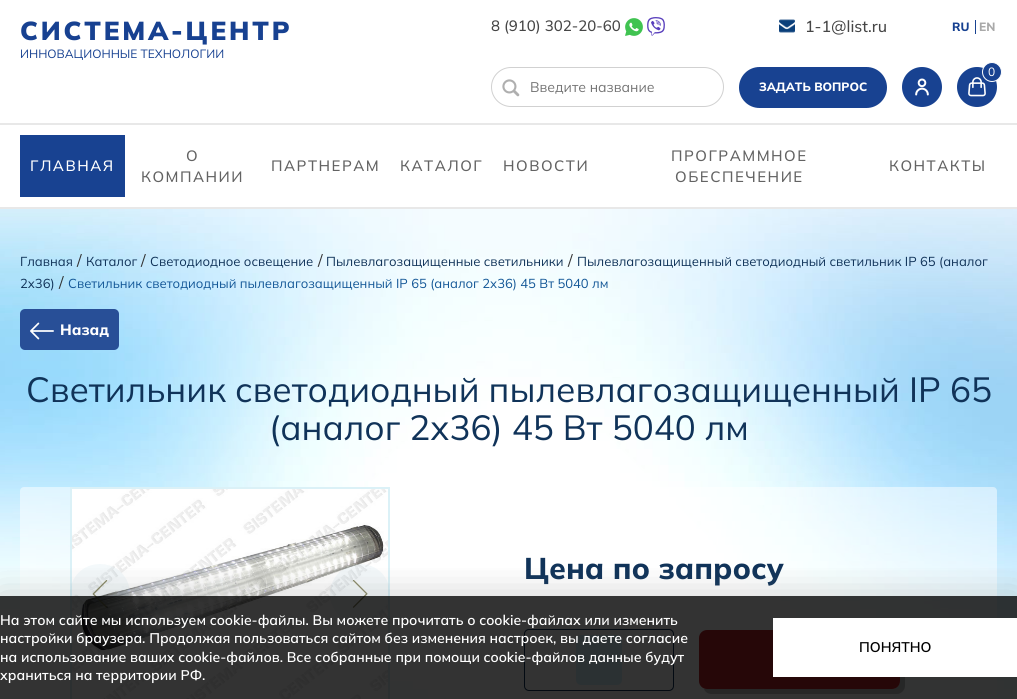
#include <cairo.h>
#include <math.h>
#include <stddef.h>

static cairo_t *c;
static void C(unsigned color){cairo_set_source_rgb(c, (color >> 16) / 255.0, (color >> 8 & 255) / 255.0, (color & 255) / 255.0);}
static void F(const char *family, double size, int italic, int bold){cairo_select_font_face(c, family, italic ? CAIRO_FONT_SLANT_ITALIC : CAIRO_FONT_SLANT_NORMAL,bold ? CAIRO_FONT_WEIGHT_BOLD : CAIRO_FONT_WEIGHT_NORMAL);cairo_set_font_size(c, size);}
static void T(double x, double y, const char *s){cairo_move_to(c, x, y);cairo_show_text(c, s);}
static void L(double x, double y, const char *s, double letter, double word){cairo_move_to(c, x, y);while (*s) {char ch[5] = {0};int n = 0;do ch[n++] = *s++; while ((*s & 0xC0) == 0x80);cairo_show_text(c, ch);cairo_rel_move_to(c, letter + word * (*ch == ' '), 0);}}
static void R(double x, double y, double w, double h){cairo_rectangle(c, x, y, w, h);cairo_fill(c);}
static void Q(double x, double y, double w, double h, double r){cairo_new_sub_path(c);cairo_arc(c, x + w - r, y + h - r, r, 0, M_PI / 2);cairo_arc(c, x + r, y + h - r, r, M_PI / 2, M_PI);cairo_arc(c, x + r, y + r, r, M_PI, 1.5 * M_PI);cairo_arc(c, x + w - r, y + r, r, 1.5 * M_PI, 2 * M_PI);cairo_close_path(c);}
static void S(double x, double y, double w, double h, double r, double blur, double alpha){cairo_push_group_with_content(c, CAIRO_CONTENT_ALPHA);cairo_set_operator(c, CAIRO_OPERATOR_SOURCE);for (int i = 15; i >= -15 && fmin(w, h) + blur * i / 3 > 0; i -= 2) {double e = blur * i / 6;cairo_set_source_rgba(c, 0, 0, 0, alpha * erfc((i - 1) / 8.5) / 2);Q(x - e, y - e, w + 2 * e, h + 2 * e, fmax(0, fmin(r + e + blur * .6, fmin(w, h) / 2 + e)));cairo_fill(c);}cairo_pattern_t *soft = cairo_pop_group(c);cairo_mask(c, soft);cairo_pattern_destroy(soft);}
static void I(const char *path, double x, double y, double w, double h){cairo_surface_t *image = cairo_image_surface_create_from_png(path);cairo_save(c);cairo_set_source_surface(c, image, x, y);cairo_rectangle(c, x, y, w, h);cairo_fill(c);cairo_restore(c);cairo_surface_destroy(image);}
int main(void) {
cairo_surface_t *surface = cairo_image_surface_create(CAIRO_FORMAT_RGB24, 1017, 699);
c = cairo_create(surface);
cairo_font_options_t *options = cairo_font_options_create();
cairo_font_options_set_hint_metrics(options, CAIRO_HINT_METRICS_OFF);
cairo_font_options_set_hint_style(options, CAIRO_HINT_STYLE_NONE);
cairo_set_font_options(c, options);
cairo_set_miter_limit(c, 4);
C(0xffffff);
cairo_paint(c);
F("Mulish Black",26,0,0);
C(0x174191);
L(20,40,"СИСТЕМА-ЦЕНТР",2.9,0);
F("Mulish",12,0,0);
T(20,58,"ИННОВАЦИОННЫЕ ТЕХНОЛОГИИ");
F("Mulish Medium",15,0,0);
C(0x464646);
T(491,31,"8 (910) 302-20-60");
I("1.png",625,18,18,18);
I("2.png",647,17,18,19);
I("3.png",779,19,16,14);
F("Mulish Medium",16,0,0);
T(805,32,"1-1@list.ru");
F("Mulish ExtraBold",12,0,0);
C(0x174191);
T(952,31,"RU");
C(0x184291);
R(975,20,1,14);
C(0xa9a9a9);
T(979,31,"EN");
C(0x184291);
cairo_new_path(c);
cairo_arc(c,922,87,20,0,2 * M_PI);
cairo_fill(c);
I("4.png",915,78,14,18);
cairo_arc(c,977,87,20,0,2 * M_PI);
cairo_fill(c);
I("5.png",968,77,18,20);
cairo_arc(c,992,72,9.5,0,2 * M_PI);
cairo_fill_preserve(c);
C(0xffffff);
cairo_set_line_width(c,1);
cairo_stroke(c);
F("Mulish",12,0,0);
T(988,76,"0");
Q(491.5,67.5,232,39,19.5);
C(0xd1d1d1);
cairo_stroke(c);
I("6.png",502,79,18,18);
F("Mulish",14,0,0);
C(0x757575);
T(530,92,"Введите название");
C(0x184291);
Q(739,67,148,41,20.5);
cairo_fill(c);
F("Mulish ExtraBold",12,0,0);
C(0xffffff);
T(759,91,"ЗАДАТЬ ВОПРОС");
C(0xe8e8e8);
R(0,123,1017,2);
R(0,207,1017,2);
C(0x184291);
R(20,135,105,62);
F("Mulish Medium",15,0,0);
C(0xffffff);
L(30,171,"ГЛАВНАЯ",1.5,0);
C(0x636363);
L(186,161,"О",1.5,0);
L(141,182,"КОМПАНИИ",1.5,0);
L(271,171,"ПАРТНЕРАМ",1.5,0);
L(400,171,"КАТАЛОГ",1.5,0);
L(503,171,"НОВОСТИ",1.5,0);
L(671,161,"ПРОГРАММНОЕ",1.5,0);
L(675,182,"ОБЕСПЕЧЕНИЕ",1.5,0);
L(889,171,"КОНТАКТЫ",1.5,0);
I("7.png",0,209,1017,490);
F("Mulish",13,0,0);
C(0x103359);
T(20,266,"Главная");
F("Mulish",16,0,0);
C(0x333333);
T(77,266,"/");
F("Mulish",13,0,0);
C(0x103359);
T(86,266,"Каталог");
F("Mulish",16,0,0);
C(0x333333);
T(141,266,"/");
F("Mulish",13,0,0);
C(0x103359);
T(150,266,"Светодиодное освещение");
F("Mulish",16,0,0);
C(0x333333);
T(318,266,"/");
F("Mulish",13,0,0);
C(0x103359);
T(326,266,"Пылевлагозащищенные светильники");
F("Mulish",16,0,0);
C(0x333333);
T(568,266,"/");
F("Mulish",13,0,0);
C(0x103359);
T(577,266,"Пылевлагозащищенный светодиодный светильник IP 65 (аналог");
T(20,288,"2х36)");
F("Mulish",16,0,0);
C(0x333333);
T(59,288,"/");
F("Mulish",13,0,0);
C(0x135797);
T(68,288,"Светильник светодиодный пылевлагозащищенный IP 65 (аналог 2х36) 45 Вт 5040 лм");
C(0x284f97);
Q(20,309,99,41,5);
cairo_fill(c);
I("8.png",30,322,24,18);
F("Mulish ExtraBold",15,0,0);
C(0xffffff);
T(60,335,"Назад");
F("Mulish",35,0,0);
C(0x103359);
T(26,402,"Светильник светодиодный пылевлагозащищенный IP 65");
T(269,440,"(аналог 2х36) 45 Вт 5040 лм");
cairo_set_source_rgba(c,1,1,1,0.5);
Q(20,487,420,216,4);
cairo_fill(c);
cairo_rectangle(c,71,488,318,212);
C(0xdbf1f7);
cairo_set_line_width(c,2);
cairo_stroke(c);
I("9.png",72,489,316,210);
cairo_set_source_rgba(c,0.714,0.839,0.886,0.15);
cairo_new_path(c);
cairo_move_to(c,130,594);
cairo_curve_to(c,130,611,117,624,100,624);
cairo_curve_to(c,83,624,70,611,70,594);
cairo_curve_to(c,70,577,83,564,100,564);
cairo_curve_to(c,117,564,130,577,130,594);
cairo_close_path(c);
cairo_fill(c);
I("10.png",92,580,16,28);
cairo_new_path(c);
cairo_move_to(c,330,594);
cairo_curve_to(c,330,611,344,624,360,624);
cairo_curve_to(c,377,624,390,611,390,594);
cairo_curve_to(c,390,577,377,564,360,564);
cairo_curve_to(c,344,564,330,577,330,594);
cairo_close_path(c);
cairo_fill(c);
I("11.png",352,580,16,28);
cairo_set_source_rgba(c,1,1,1,0.5);
Q(479,487,518,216,4);
cairo_fill(c);
F("Mulish ExtraBold",30,0,0);
C(0x103359);
T(524,579,"Цена по запросу");
Q(524.5,629.5,149,61,4.5);
cairo_set_line_width(c,1);
cairo_stroke(c);
C(0xd9f5ff);
Q(576,635,46,50,5);
cairo_fill(c);
cairo_set_source_rgba(c,0.067,0.067,0.067,0.25);
cairo_new_path(c);
cairo_move_to(c,704,689);
cairo_curve_to(c,705,692,708,694,712,694);
cairo_line_to(c,897,694);
cairo_curve_to(c,901,694,905,690,905,686);
cairo_line_to(c,905,643);
cairo_curve_to(c,905,639,903,636,900,635);
cairo_line_to(c,900,638);
cairo_line_to(c,900,681);
cairo_curve_to(c,900,685,896,689,892,689);
cairo_line_to(c,707,689);
cairo_close_path(c);
cairo_fill(c);
C(0xc02129);
Q(699,630,201,59,8);
cairo_fill(c);
cairo_save(c);
cairo_rectangle(c,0,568,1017,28);
cairo_clip(c);
C(0x636363);
S(0,599,1017,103,0,19,.38);
cairo_restore(c);
cairo_set_source_rgba(c,0,0,0,0.8);
R(0,596,1017,103);
F("Mulish SemiBold",14,0,0);
C(0xffffff);
T(0,625,"На этом сайте мы используем cookie-файлы. Вы можете прочитать о cookie-файлах или изменить");
T(0,643,"настройки браузера. Продолжая пользоваться сайтом без изменения настроек, вы даете согласие");
T(0,662,"на использование ваших cookie-файлов. Все собранные при помощи cookie-файлов данные будут");
T(0,680,"храниться на территории РФ.");
R(773,618,244,59);
C(0x000000);
T(859,652,"ПОНЯТНО");
cairo_surface_write_to_png(surface, "o.png");
cairo_font_options_destroy(options);
cairo_destroy(c);
cairo_surface_destroy(surface);
return 0;
}
